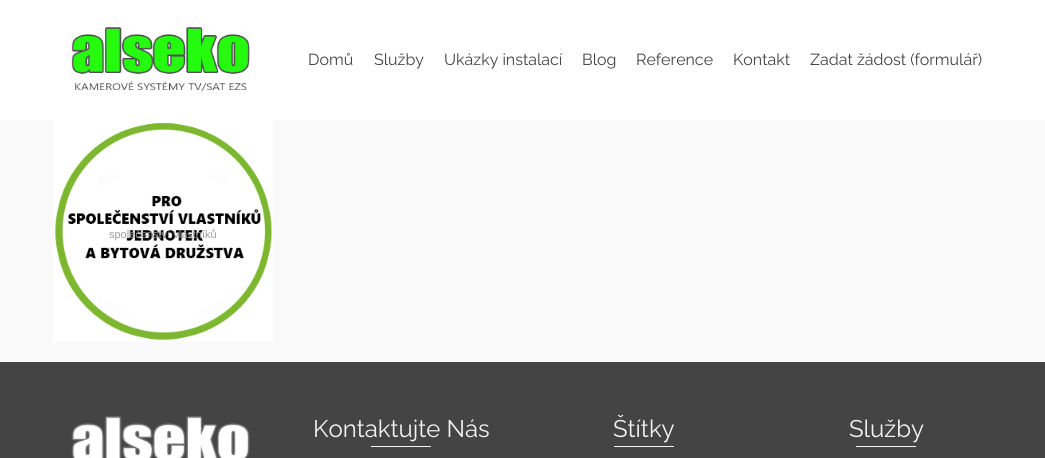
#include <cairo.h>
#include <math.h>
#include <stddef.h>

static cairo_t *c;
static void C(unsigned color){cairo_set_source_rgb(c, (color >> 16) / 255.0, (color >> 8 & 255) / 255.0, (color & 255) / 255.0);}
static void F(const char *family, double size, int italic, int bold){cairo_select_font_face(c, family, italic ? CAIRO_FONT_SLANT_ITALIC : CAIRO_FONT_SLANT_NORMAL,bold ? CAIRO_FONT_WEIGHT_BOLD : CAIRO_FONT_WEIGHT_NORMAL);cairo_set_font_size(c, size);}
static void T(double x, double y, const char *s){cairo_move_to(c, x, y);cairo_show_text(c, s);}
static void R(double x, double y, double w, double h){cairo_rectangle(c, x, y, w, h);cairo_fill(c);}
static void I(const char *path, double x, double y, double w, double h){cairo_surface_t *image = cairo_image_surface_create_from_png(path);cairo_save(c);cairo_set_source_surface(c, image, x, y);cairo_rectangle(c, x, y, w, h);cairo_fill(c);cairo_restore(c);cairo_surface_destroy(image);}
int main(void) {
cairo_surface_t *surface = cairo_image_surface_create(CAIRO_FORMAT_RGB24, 1045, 458);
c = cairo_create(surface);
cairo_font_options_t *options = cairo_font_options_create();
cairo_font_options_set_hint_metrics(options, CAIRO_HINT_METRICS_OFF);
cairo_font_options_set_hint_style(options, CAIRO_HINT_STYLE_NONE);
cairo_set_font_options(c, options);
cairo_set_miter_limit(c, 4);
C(0xffffff);
cairo_paint(c);
I("1.png",71,27,179,65);
F("Raleway",16,0,0);
C(0x444444);
T(308,65,"Domů");
T(374,65,"Služby");
T(444,65,"Ukázky instalací");
T(582,65,"Blog");
T(636,65,"Reference");
T(733,65,"Kontakt");
T(810,65,"Zadat žádost (formulář)");
C(0xf9f9f9);
R(0,120,1045,242);
C(0xffffff);
R(53,120,220,222);
I("2.png",55,123,217,217);
F("Liberation Sans",11,0,0);
C(0x9d9d9d);
T(109,238,"společenství vlastníků");
C(0x444444);
R(0,362,1045,96);
I("3.png",71,416,179,42);
F("Raleway",24,0,0);
C(0xf2f2f2);
T(313,437,"Kontaktujte Nás");
R(371,446,60,1);
T(613,437,"Štítky");
R(614,446,60,1);
T(849,437,"Služby");
R(856,446,60,1);
cairo_surface_write_to_png(surface, "o.png");
cairo_font_options_destroy(options);
cairo_destroy(c);
cairo_surface_destroy(surface);
return 0;
}
